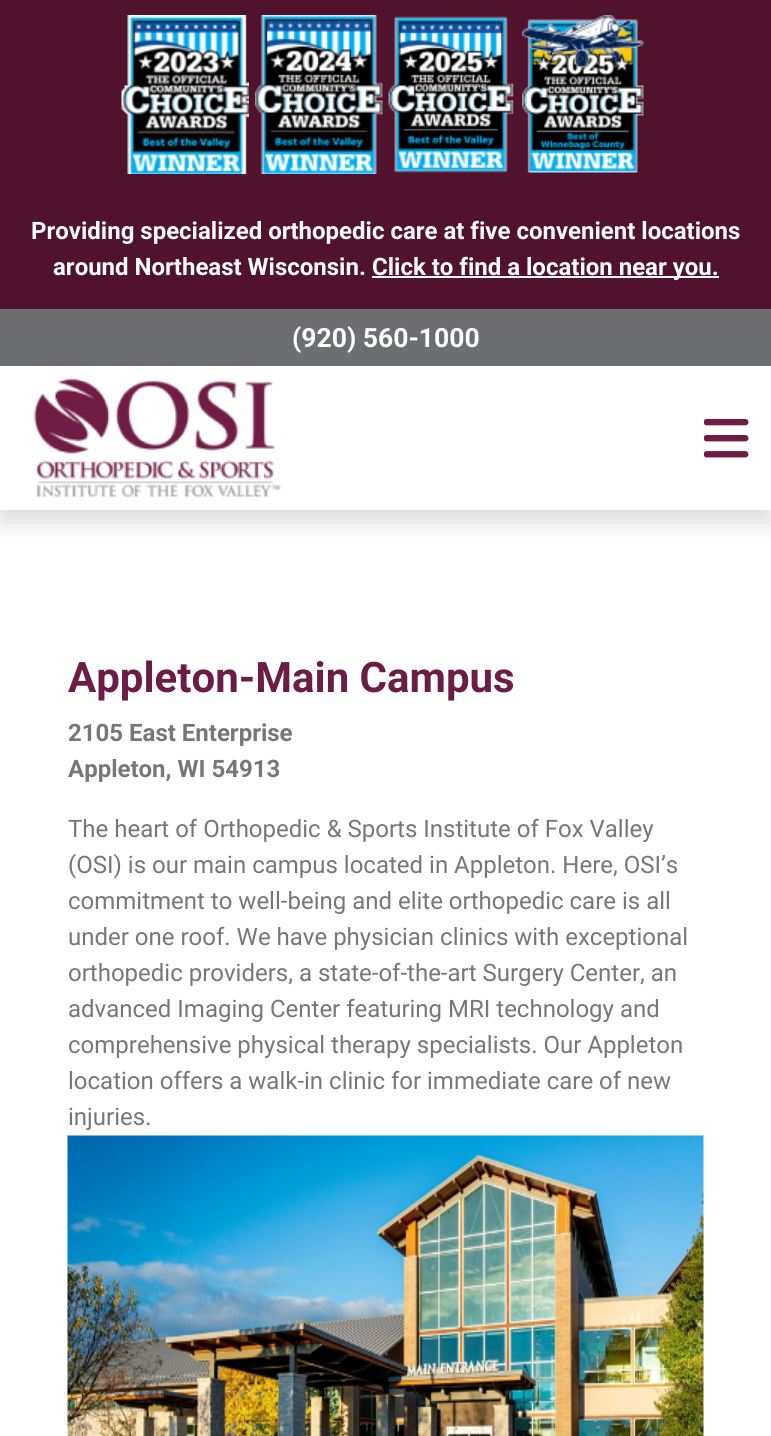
#include <cairo.h>
#include <math.h>
#include <stddef.h>

static cairo_t *c;
static void C(unsigned color){cairo_set_source_rgb(c, (color >> 16) / 255.0, (color >> 8 & 255) / 255.0, (color & 255) / 255.0);}
static void F(const char *family, double size, int italic, int bold){cairo_select_font_face(c, family, italic ? CAIRO_FONT_SLANT_ITALIC : CAIRO_FONT_SLANT_NORMAL,bold ? CAIRO_FONT_WEIGHT_BOLD : CAIRO_FONT_WEIGHT_NORMAL);cairo_set_font_size(c, size);}
static void T(double x, double y, const char *s){cairo_move_to(c, x, y);cairo_show_text(c, s);}
static void R(double x, double y, double w, double h){cairo_rectangle(c, x, y, w, h);cairo_fill(c);}
static void Q(double x, double y, double w, double h, double r){cairo_new_sub_path(c);cairo_arc(c, x + w - r, y + h - r, r, 0, M_PI / 2);cairo_arc(c, x + r, y + h - r, r, M_PI / 2, M_PI);cairo_arc(c, x + r, y + r, r, M_PI, 1.5 * M_PI);cairo_arc(c, x + w - r, y + r, r, 1.5 * M_PI, 2 * M_PI);cairo_close_path(c);}
static void S(double x, double y, double w, double h, double r, double blur, double alpha){cairo_push_group_with_content(c, CAIRO_CONTENT_ALPHA);cairo_set_operator(c, CAIRO_OPERATOR_SOURCE);for (int i = 15; i >= -15 && fmin(w, h) + blur * i / 3 > 0; i -= 2) {double e = blur * i / 6;cairo_set_source_rgba(c, 0, 0, 0, alpha * erfc((i - 1) / 8.5) / 2);Q(x - e, y - e, w + 2 * e, h + 2 * e, fmax(0, fmin(r + e + blur * .6, fmin(w, h) / 2 + e)));cairo_fill(c);}cairo_pattern_t *soft = cairo_pop_group(c);cairo_mask(c, soft);cairo_pattern_destroy(soft);}
static void I(const char *path, double x, double y, double w, double h){cairo_surface_t *image = cairo_image_surface_create_from_png(path);cairo_save(c);cairo_set_source_surface(c, image, x, y);cairo_rectangle(c, x, y, w, h);cairo_fill(c);cairo_restore(c);cairo_surface_destroy(image);}
int main(void) {
cairo_surface_t *surface = cairo_image_surface_create(CAIRO_FORMAT_RGB24, 771, 1436);
c = cairo_create(surface);
cairo_font_options_t *options = cairo_font_options_create();
cairo_font_options_set_hint_metrics(options, CAIRO_HINT_METRICS_OFF);
cairo_font_options_set_hint_style(options, CAIRO_HINT_STYLE_NONE);
cairo_set_font_options(c, options);
cairo_set_miter_limit(c, 4);
C(0xffffff);
cairo_paint(c);
C(0x51122e);
R(0,0,771,189);
I("1.png",121,15,128,159);
I("2.png",255,15,128,159);
I("3.png",388,16,126,157);
I("4.png",522,15,122,158);
C(0x51122f);
R(0,189,771,120);
F("Roboto",24,0,1);
C(0xffffff);
T(31,239,"Providing specialized orthopedic care at five convenient locations");
T(53,275,"around Northeast Wisconsin.");
R(372,276,347,2);
T(372,275,"Click to find a location near you.");
C(0x6d6e72);
R(0,309,771,57);
cairo_save(c);
cairo_set_fill_rule(c,CAIRO_FILL_RULE_EVEN_ODD);
cairo_new_path(c);
cairo_move_to(c,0,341);
cairo_line_to(c,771,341);
cairo_line_to(c,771,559);
cairo_line_to(c,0,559);
cairo_close_path(c);
cairo_move_to(c,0,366);
cairo_line_to(c,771,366);
cairo_line_to(c,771,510);
cairo_line_to(c,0,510);
cairo_close_path(c);
cairo_clip(c);
C(0x000000);
S(0,378,771,144,0,12,.15);
cairo_restore(c);
F("Roboto",26.5,0,1);
C(0xffffff);
T(292,347,"(920) 560-1000");
I("5.png",34,378,247,120);
I("6.png",704,418,45,40);
F("Roboto",42,0,1);
C(0x6c1d45);
T(68,692,"Appleton-Main Campus");
F("Roboto",24,0,1);
C(0x76777b);
T(68,741,"2105 East Enterprise");
T(68,777,"Appleton, WI 54913");
F("Roboto",24,0,0);
T(68,837,"The heart of Orthopedic & Sports Institute of Fox Valley");
T(68,873,"(OSI) is our main campus located in Appleton. Here, OSI’s");
T(68,909,"commitment to well-being and elite orthopedic care is all");
T(68,945,"under one roof. We have physician clinics with exceptional");
T(68,981,"orthopedic providers, a state-of-the-art Surgery Center, an");
T(68,1017,"advanced Imaging Center featuring MRI technology and");
T(68,1053,"comprehensive physical therapy specialists. Our Appleton");
T(68,1089,"location offers a walk-in clinic for immediate care of new");
T(68,1125,"injuries.");
I("7.png",67,1135,637,301);
cairo_surface_write_to_png(surface, "o.png");
cairo_font_options_destroy(options);
cairo_destroy(c);
cairo_surface_destroy(surface);
return 0;
}
